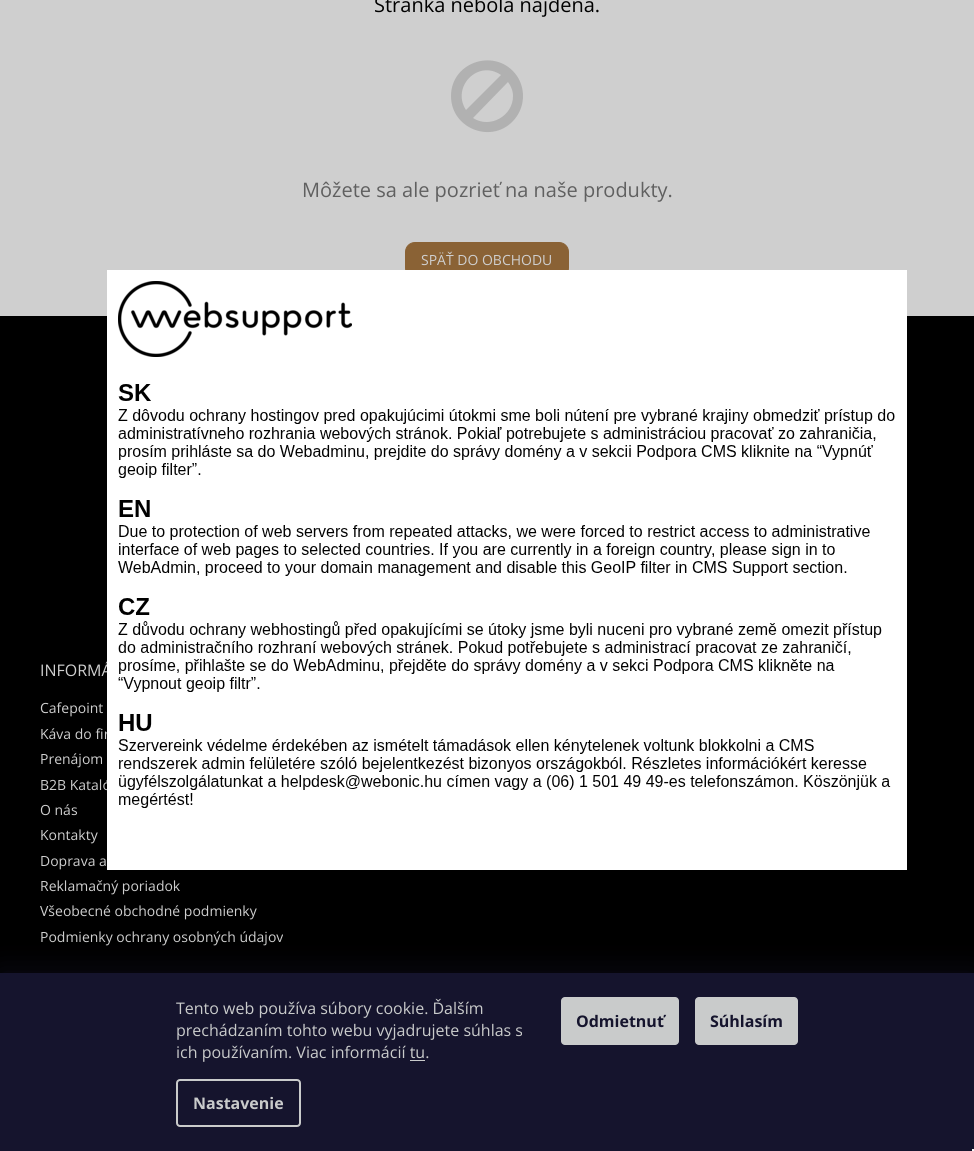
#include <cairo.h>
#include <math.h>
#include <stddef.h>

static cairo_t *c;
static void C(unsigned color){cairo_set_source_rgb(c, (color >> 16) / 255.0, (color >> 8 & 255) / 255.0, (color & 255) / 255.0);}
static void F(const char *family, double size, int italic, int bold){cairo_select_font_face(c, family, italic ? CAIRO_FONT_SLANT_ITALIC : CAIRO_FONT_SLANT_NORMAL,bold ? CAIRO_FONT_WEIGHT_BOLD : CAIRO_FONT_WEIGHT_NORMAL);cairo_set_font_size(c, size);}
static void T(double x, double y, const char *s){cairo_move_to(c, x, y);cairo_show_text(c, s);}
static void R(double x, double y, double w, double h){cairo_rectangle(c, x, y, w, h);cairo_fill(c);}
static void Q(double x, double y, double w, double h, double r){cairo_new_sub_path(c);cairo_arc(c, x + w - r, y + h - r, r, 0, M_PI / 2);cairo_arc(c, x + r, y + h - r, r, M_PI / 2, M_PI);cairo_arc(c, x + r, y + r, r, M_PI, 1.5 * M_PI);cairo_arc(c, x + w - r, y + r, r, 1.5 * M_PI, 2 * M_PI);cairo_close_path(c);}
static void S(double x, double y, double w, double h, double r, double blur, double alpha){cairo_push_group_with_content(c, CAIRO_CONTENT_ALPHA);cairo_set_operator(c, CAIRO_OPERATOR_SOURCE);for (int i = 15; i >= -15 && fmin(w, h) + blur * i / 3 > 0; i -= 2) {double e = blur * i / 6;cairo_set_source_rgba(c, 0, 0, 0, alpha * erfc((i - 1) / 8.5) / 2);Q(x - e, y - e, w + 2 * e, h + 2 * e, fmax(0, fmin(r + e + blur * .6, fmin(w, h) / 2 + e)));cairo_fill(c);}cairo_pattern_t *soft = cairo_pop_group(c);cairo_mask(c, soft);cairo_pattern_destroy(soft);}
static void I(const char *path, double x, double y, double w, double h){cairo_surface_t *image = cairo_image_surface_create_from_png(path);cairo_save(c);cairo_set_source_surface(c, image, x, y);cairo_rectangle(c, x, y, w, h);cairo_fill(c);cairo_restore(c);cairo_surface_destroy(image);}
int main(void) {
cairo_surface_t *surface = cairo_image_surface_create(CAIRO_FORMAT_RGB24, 974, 1151);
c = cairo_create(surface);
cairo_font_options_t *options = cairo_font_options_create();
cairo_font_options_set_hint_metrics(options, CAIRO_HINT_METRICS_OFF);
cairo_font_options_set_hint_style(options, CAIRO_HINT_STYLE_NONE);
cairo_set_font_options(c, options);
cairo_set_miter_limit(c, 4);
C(0xcfcfcf);
cairo_paint(c);
F("Open Sans",20,0,0);
C(0x000000);
T(374,12,"Stránka nebola nájdená.");
C(0xb1b1b1);
cairo_new_path(c);
cairo_move_to(c,513,96);
cairo_curve_to(c,513,91,511,86,508,82);
cairo_line_to(c,473,118);
cairo_curve_to(c,490,129,513,116,513,96);
cairo_close_path(c);
cairo_move_to(c,466,110);
cairo_line_to(c,501,75);
cairo_curve_to(c,478,59,451,87,466,110);
cairo_close_path(c);
cairo_move_to(c,523,96);
cairo_curve_to(c,523,103,521,110,517,116);
cairo_curve_to(c,497,146,451,131,451,96);
cairo_curve_to(c,451,61,497,47,517,76);
cairo_curve_to(c,521,82,523,89,523,96);
cairo_close_path(c);
cairo_fill(c);
C(0x606060);
T(302,197,"Môžete sa ale pozrieť na naše produkty.");
C(0x8a6235);
Q(405.5,242.5,163,35,9.5);
cairo_fill_preserve(c);
cairo_set_line_width(c,1);
cairo_stroke(c);
F("Open Sans",14,0,0);
C(0xcfcfcf);
T(421,265,"SPÄŤ DO OBCHODU");
C(0x000000);
R(0,316,974,657);
F("Open Sans",16,0,0);
C(0xcfcfcf);
T(40,676,"INFORMÁ");
F("Open Sans",14,0,0);
T(40,713,"Cafepoint");
T(40,739,"Káva do fir");
T(40,764,"Prenájom");
T(40,790,"B2B Kataló");
T(40,815,"O nás");
T(40,840,"Kontakty");
T(40,866,"Doprava a");
T(40,891,"Reklamačný poriadok");
T(40,916,"Všeobecné obchodné podmienky");
T(40,942,"Podmienky ochrany osobných údajov");
I("1.png",107,270,800,600);
C(0x16142e);
S(0,973,974,178,0,15,.5);
C(0x15142d);
R(0,973,974,178);
F("Open Sans",16,0,0);
C(0xc9cbcb);
T(176,1014,"Tento web používa súbory cookie. Ďalším");
T(176,1036,"prechádzaním tohto webu vyjadrujete súhlas s");
T(176,1058,"ich používaním. Viac informácií tu.");
R(410,1060,15,1);
Q(177,1080,123,46,3);
cairo_set_line_width(c,2);
cairo_stroke(c);
F("Open Sans",16,0,1);
T(193,1109,"Nastavenie");
Q(561,997,118,48,4);
cairo_fill(c);
C(0x15142d);
T(576,1027,"Odmietnuť");
C(0xc9cbcb);
Q(695,997,103,48,4);
cairo_fill(c);
C(0x15142d);
T(710,1027,"Súhlasím");
C(0xf5f5f5);
R(972,1149,2,2);
cairo_surface_write_to_png(surface, "o.png");
cairo_font_options_destroy(options);
cairo_destroy(c);
cairo_surface_destroy(surface);
return 0;
}
